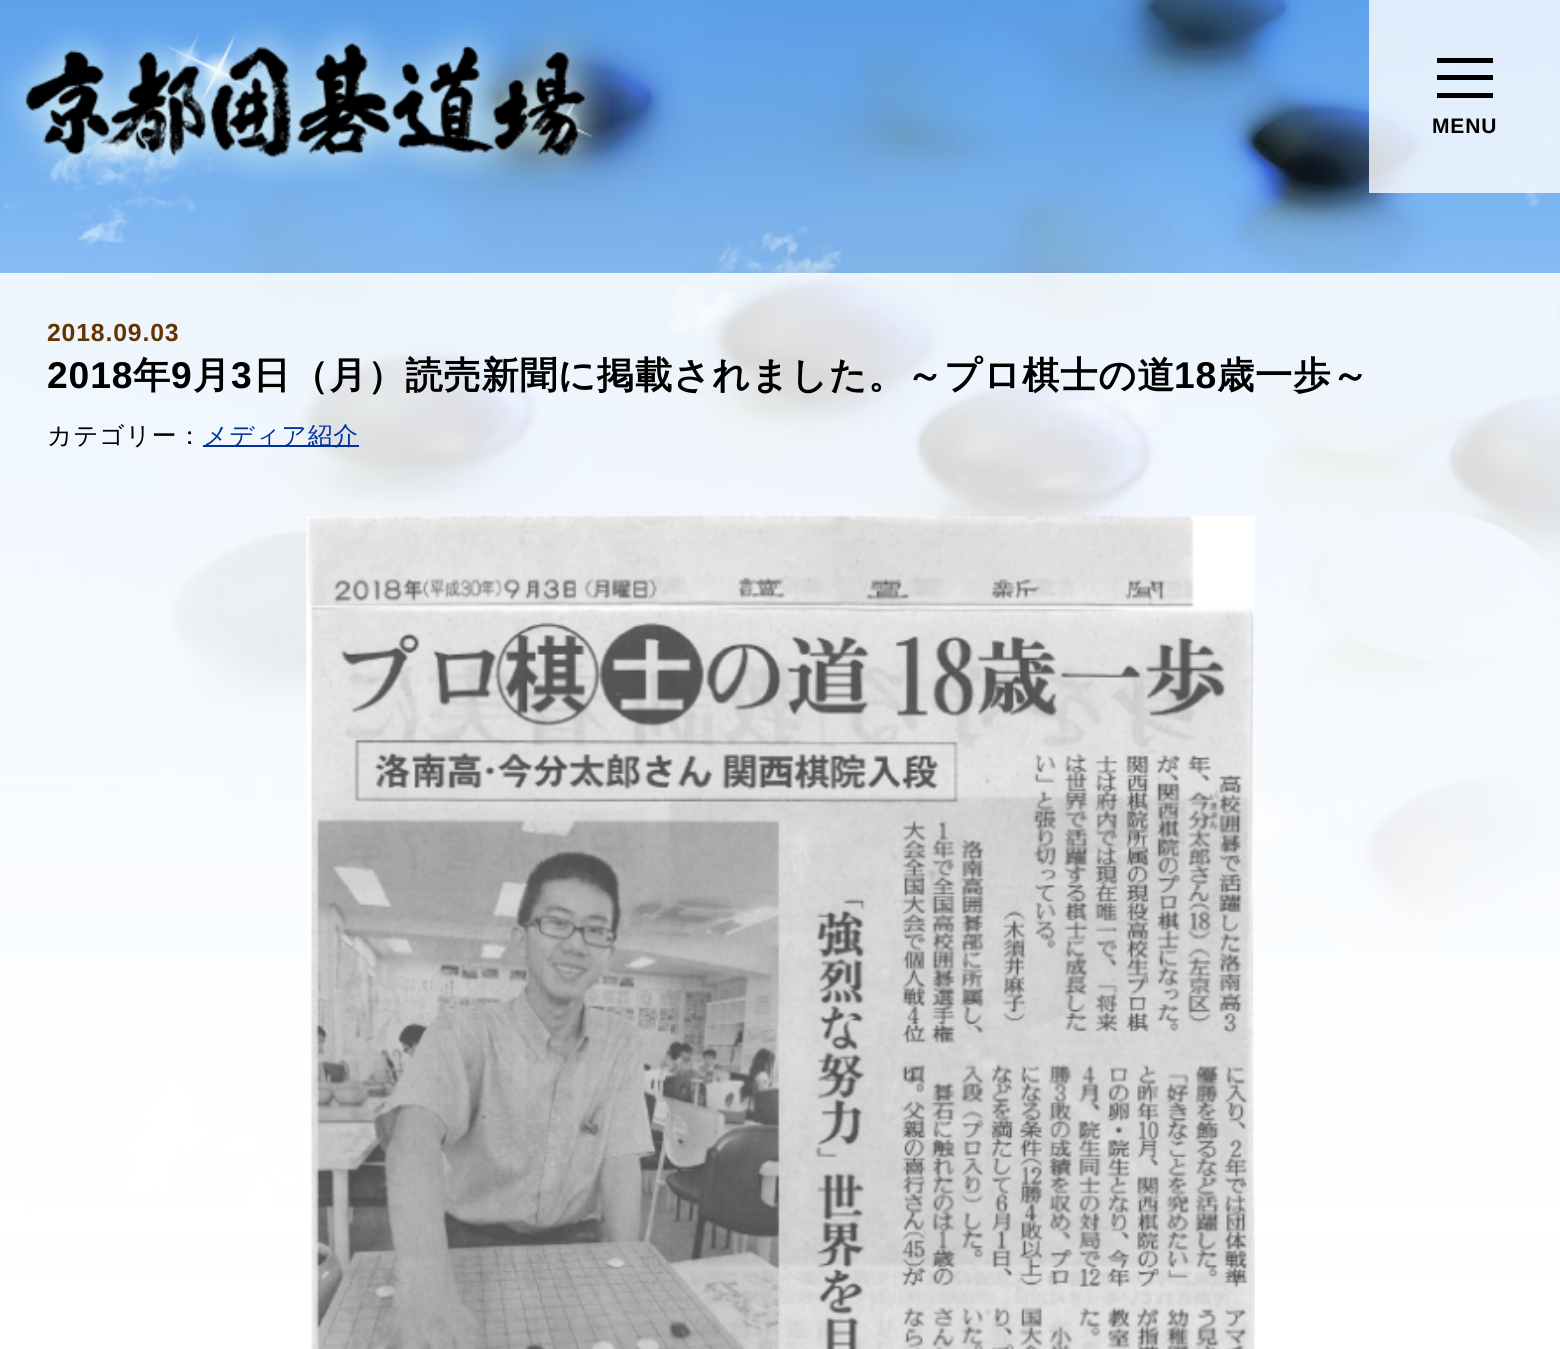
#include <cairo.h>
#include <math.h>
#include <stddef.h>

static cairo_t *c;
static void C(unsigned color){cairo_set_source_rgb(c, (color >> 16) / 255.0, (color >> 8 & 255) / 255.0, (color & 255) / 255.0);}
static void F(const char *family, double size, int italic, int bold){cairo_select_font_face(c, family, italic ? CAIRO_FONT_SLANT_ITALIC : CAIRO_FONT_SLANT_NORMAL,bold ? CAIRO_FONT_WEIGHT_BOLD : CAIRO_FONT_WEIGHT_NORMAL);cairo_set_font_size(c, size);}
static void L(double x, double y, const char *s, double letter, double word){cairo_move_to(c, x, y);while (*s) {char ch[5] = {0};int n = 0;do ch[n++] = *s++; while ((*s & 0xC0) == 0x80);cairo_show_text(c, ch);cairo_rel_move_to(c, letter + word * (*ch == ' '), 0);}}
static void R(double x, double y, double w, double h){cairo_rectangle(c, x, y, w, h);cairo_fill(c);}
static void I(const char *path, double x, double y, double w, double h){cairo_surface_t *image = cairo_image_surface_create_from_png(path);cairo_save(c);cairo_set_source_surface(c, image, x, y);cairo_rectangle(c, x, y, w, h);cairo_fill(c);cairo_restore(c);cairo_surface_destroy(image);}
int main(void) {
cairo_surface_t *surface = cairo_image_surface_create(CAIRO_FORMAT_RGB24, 1560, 1349);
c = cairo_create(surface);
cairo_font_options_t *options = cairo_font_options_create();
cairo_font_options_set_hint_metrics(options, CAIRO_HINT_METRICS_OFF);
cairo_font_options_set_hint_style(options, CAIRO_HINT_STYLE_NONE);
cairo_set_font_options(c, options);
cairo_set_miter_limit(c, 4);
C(0xffffff);
cairo_paint(c);
I("1.png",0,0,1560,1349);
I("2.png",2,19,608,163);
cairo_set_source_rgba(c,1,1,1,0.8);
R(1369,0,191,193);
C(0x000000);
R(1437,58,56,5);
R(1437,75,56,5);
R(1437,93,56,5);
F("Liberation Sans",21,0,1);
L(1432,133,"MENU",.85,0);
cairo_set_source_rgba(c,1,1,1,0.85);
R(0,273,1560,960);
F("Liberation Sans",24.75,0,1);
C(0x663300);
L(47,341,"2018.09.03",.85,0);
F("Liberation Sans",37.25,0,1);
C(0x000000);
L(47,388,"2018",.85,0);
F("WenQuanYi Zen Hei",37.25,0,1);
L(133,388,"年",.85,0);
F("Liberation Sans",37.25,0,1);
L(171,388,"9",.85,0);
F("WenQuanYi Zen Hei",37.25,0,1);
L(193,388,"月",.85,0);
F("Liberation Sans",37.25,0,1);
L(231,388,"3",.85,0);
F("WenQuanYi Zen Hei",37.25,0,1);
L(253,388,"日（月）読売新聞に掲載されました。～プロ棋士の道",.85,0);
F("Liberation Sans",37.25,0,1);
L(1174,388,"18",.85,0);
F("WenQuanYi Zen Hei",37.25,0,1);
L(1217,388,"歳一歩～",.85,0);
F("WenQuanYi Zen Hei Medium",24.75,0,0);
L(47,444,"カテゴリー：",.85,0);
C(0x003399);
R(203,445,156,2);
L(203,444,"メディア紹介",.85,0);
I("3.png",306,516,949,833);
cairo_surface_write_to_png(surface, "o.png");
cairo_font_options_destroy(options);
cairo_destroy(c);
cairo_surface_destroy(surface);
return 0;
}
